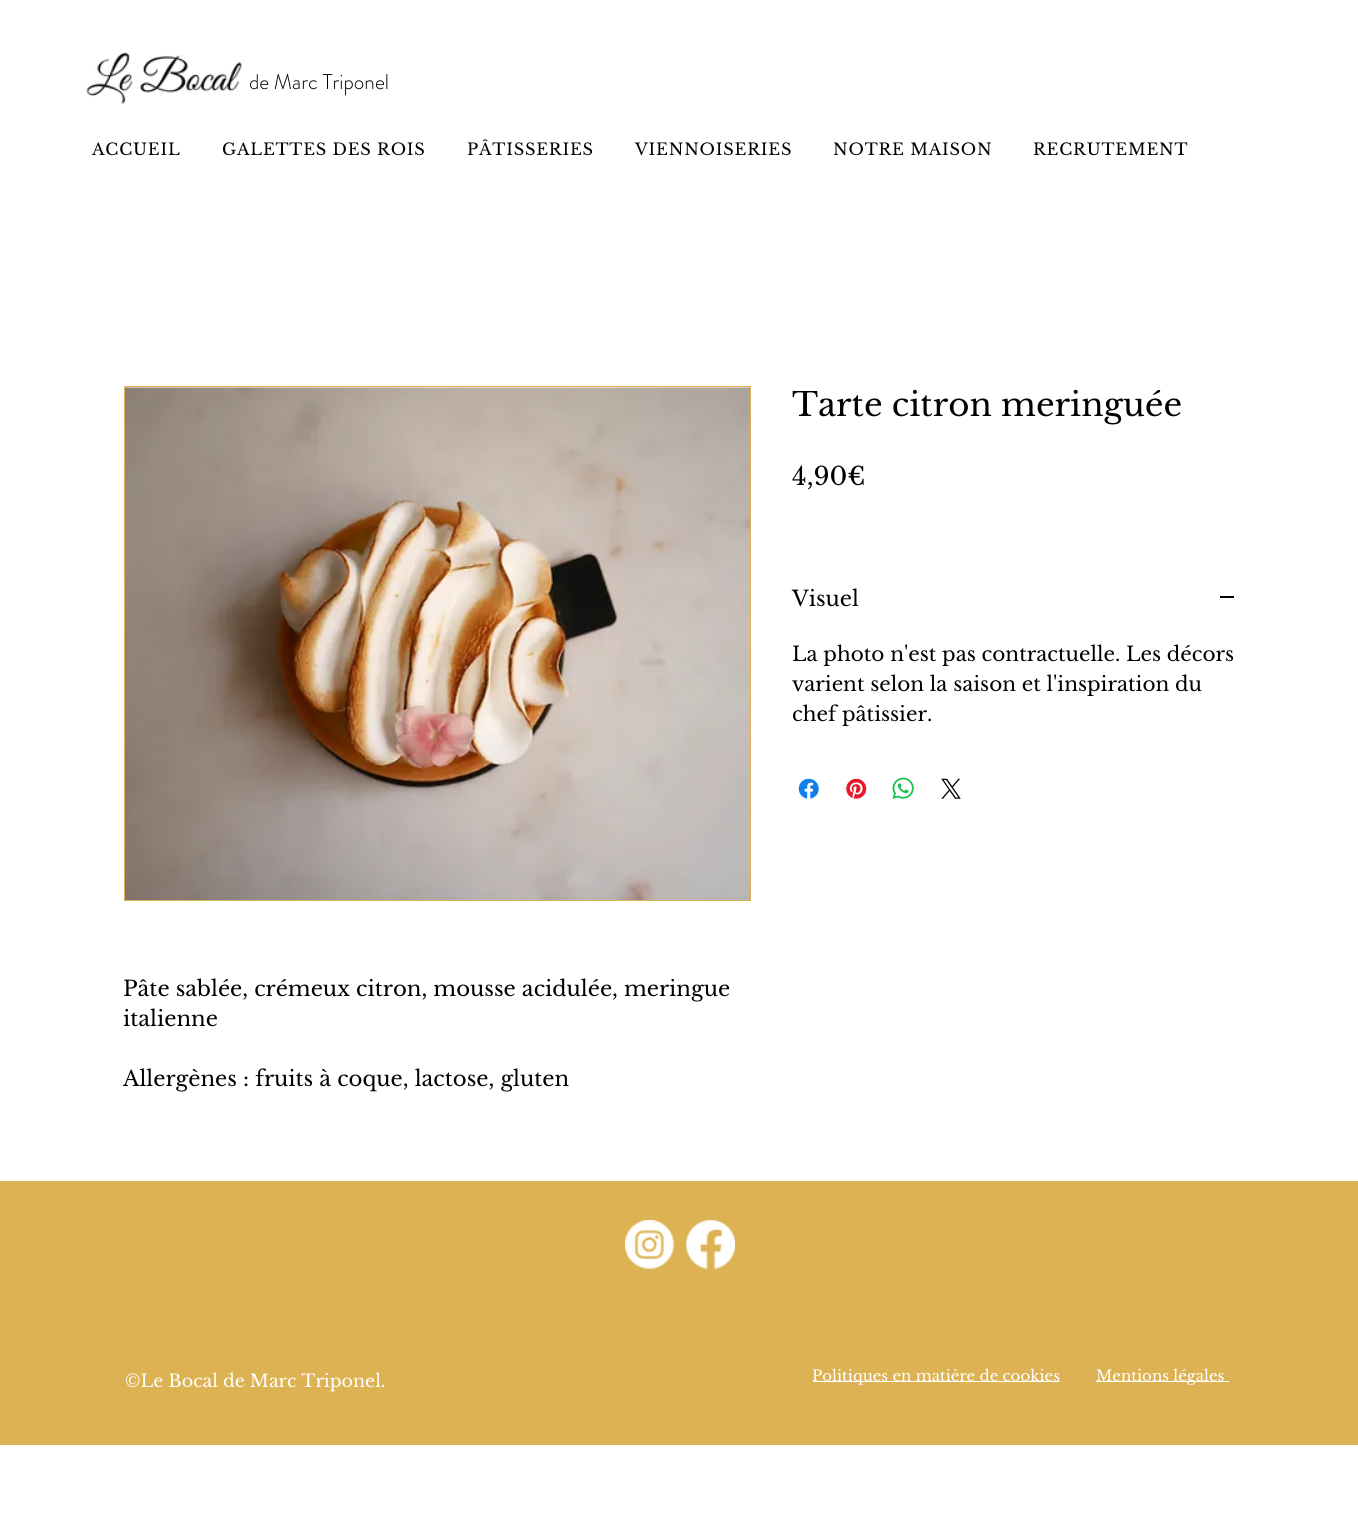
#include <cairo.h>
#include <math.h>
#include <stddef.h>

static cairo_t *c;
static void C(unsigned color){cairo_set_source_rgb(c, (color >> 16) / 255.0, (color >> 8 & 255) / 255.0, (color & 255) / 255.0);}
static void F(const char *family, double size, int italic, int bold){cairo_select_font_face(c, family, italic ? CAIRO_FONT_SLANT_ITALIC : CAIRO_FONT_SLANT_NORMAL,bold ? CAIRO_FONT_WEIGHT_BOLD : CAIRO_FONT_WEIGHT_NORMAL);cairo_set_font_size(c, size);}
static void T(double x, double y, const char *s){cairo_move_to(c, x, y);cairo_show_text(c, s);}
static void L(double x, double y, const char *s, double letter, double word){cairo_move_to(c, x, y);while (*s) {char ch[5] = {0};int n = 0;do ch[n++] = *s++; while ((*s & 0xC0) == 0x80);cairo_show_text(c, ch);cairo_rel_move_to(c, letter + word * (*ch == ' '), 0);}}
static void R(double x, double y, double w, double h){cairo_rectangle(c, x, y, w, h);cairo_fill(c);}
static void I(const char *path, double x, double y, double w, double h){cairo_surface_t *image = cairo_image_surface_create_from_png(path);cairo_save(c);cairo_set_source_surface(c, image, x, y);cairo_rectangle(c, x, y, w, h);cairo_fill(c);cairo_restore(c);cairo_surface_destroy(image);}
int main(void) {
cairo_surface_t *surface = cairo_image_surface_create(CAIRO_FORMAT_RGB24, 1358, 1526);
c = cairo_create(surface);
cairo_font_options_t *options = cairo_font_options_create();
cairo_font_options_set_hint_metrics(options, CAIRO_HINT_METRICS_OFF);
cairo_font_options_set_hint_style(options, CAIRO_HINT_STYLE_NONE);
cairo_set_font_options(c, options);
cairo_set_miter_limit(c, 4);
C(0xffffff);
cairo_paint(c);
I("1.png",86,52,156,52);
F("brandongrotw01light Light",21.25,0,0);
C(0x000000);
T(249,89,"de Marc Triponel");
F("Libre Baskerville",16.25,0,0);
L(92,155,"ACCUEIL",.8,0);
L(222,155,"GALETTES DES ROIS",.8,0);
L(467,155,"PÂTISSERIES",.8,0);
L(635,155,"VIENNOISERIES",.8,0);
L(833,155,"NOTRE MAISON",.8,0);
L(1033,155,"RECRUTEMENT",.8,0);
F("Libre Baskerville",32.5,0,0);
T(792,416,"Tarte citron meringuée");
F("Libre Baskerville",25,0,0);
T(792,485,"4,90€");
F("Libre Baskerville",21.25,0,0);
T(792,606,"Visuel");
R(1220,596,14,2);
F("Libre Baskerville",20,0,0);
T(792,661,"La photo n'est pas contractuelle. Les décors");
T(792,691,"varient selon la saison et l'inspiration du");
T(792,721,"chef pâtissier.");
I("2.png",798,778,21,21);
I("3.png",846,778,21,21);
I("4.png",892,777,22,22);
I("5.png",941,778,20,21);
cairo_rectangle(c,124.5,386.5,626,514);
C(0xdcb253);
cairo_set_line_width(c,1);
cairo_stroke(c);
I("6.png",125,387,625,513);
F("Libre Baskerville",21.25,0,0);
C(0x000000);
T(123,996,"Pâte sablée, crémeux citron, mousse acidulée, meringue");
T(123,1026,"italienne");
T(123,1086,"Allergènes : fruits à coque, lactose, gluten");
C(0xdcb253);
R(0,1181,1358,264);
I("7.png",625,1220,49,49);
I("8.png",686,1220,49,49);
F("Libre Baskerville",17.5,0,0);
C(0xffffff);
T(125,1387,"©Le Bocal de Marc Triponel.");
R(813,1381,247,1);
F("Libre Baskerville",15,0,0);
T(812,1381,"Politiques en matière de cookies");
R(1096,1381,133,1);
T(1096,1381,"Mentions légales");
cairo_surface_write_to_png(surface, "o.png");
cairo_font_options_destroy(options);
cairo_destroy(c);
cairo_surface_destroy(surface);
return 0;
}
